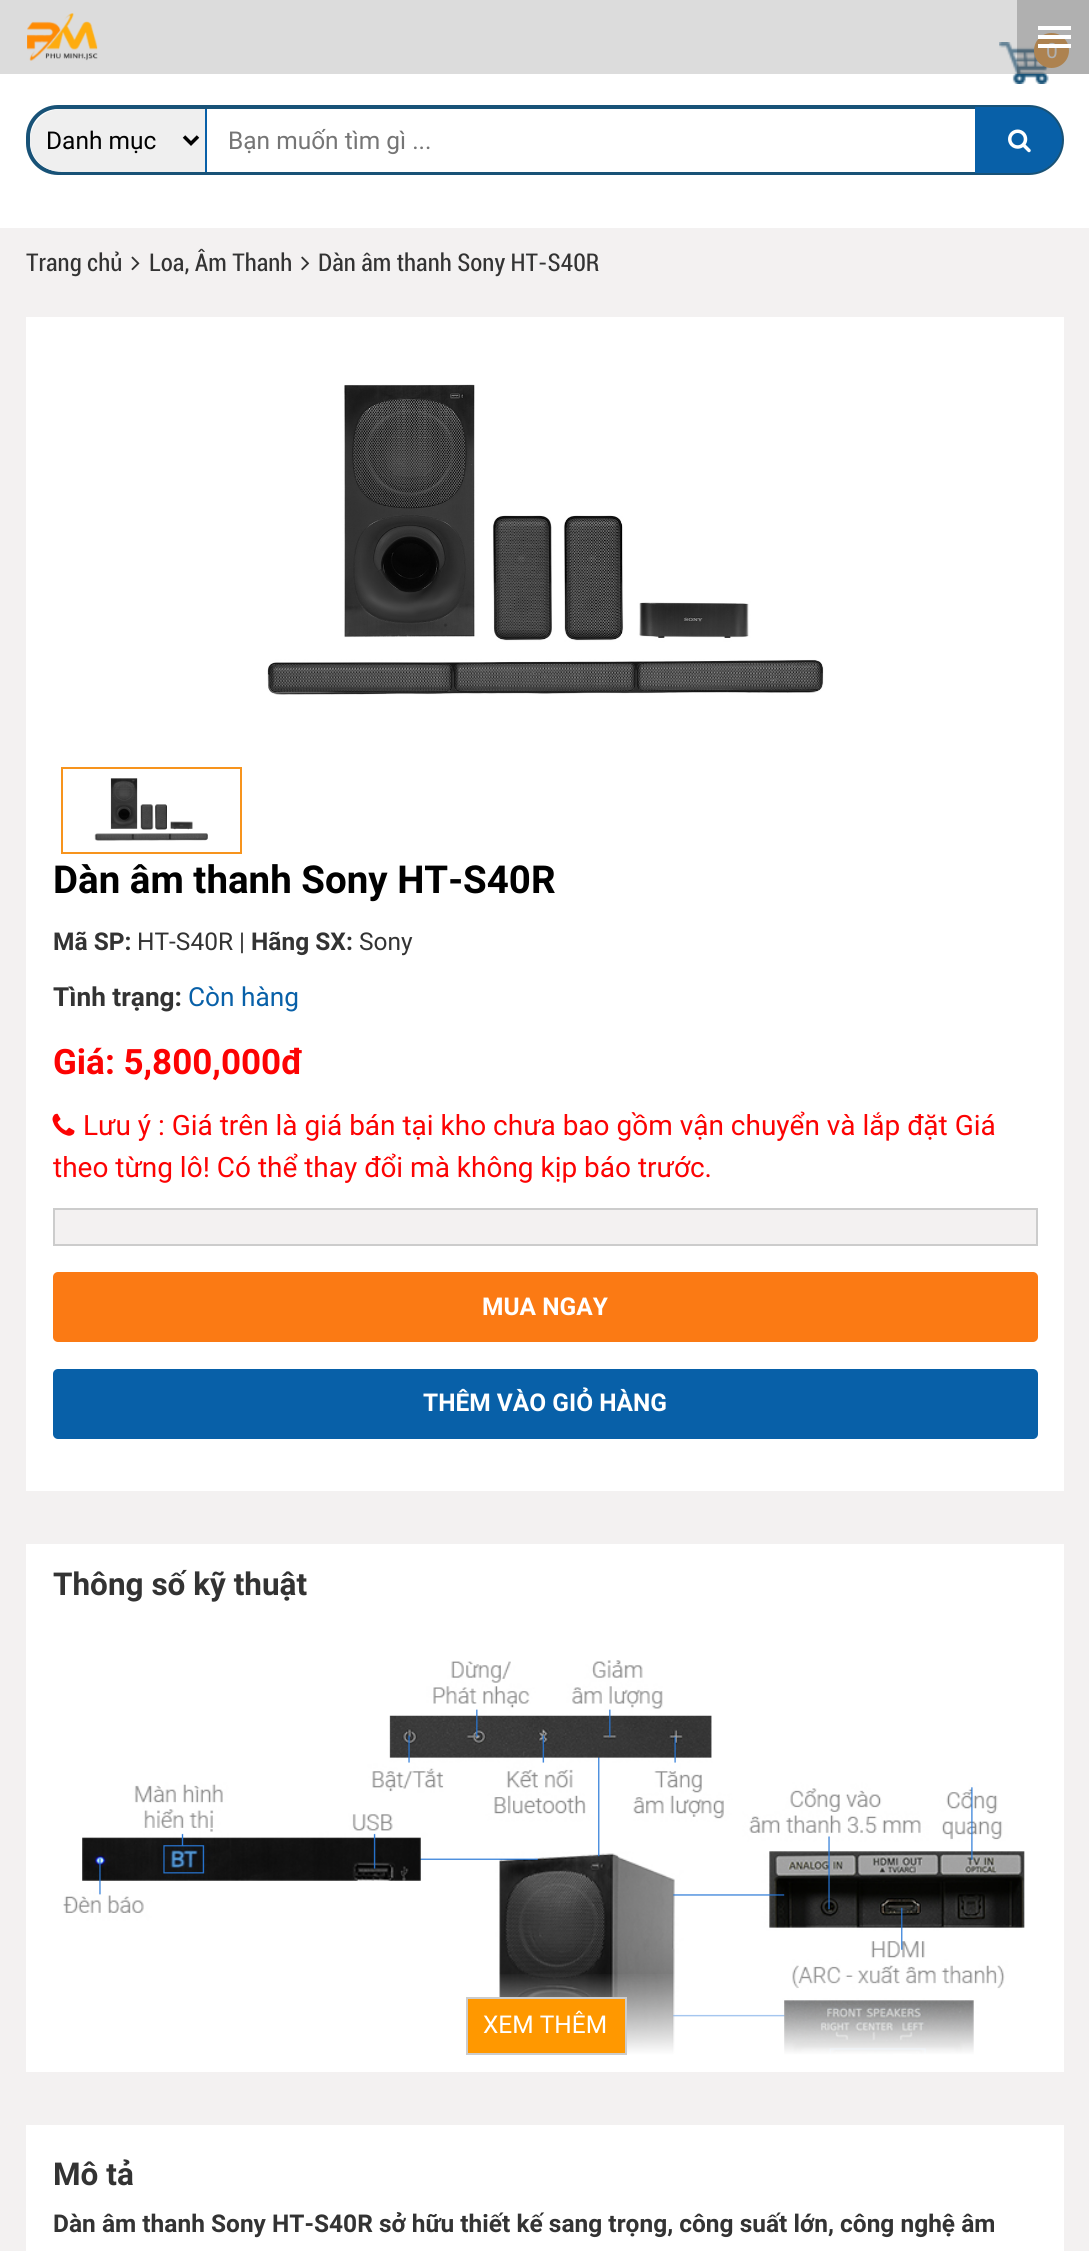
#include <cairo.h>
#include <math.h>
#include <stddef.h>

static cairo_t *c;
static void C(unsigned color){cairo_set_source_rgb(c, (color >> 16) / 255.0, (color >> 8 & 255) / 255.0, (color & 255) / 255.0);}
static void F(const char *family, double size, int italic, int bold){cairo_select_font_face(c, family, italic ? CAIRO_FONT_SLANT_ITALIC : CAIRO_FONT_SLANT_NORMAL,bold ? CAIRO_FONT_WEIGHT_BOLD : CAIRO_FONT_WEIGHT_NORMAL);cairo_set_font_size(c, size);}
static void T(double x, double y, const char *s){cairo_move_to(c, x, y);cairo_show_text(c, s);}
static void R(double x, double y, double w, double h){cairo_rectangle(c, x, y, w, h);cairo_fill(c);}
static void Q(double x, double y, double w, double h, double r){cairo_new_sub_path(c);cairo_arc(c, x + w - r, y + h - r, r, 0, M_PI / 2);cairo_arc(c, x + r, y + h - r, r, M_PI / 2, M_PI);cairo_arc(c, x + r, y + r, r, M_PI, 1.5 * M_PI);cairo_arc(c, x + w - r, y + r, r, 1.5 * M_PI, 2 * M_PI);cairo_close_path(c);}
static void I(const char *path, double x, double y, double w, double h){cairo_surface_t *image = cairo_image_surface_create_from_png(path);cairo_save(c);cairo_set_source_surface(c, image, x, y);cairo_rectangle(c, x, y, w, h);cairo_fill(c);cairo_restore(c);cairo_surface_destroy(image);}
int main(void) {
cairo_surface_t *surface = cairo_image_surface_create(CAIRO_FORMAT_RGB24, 1089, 2251);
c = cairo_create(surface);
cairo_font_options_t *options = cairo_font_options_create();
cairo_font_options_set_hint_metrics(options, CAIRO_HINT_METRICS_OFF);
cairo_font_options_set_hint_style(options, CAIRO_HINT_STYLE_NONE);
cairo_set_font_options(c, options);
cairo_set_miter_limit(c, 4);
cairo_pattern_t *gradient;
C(0xffffff);
cairo_paint(c);
I("2.png",999,42,50,42);
C(0xf7941d);
cairo_arc(c,1051.5,50.5,17.5,0,2 * M_PI);
cairo_fill(c);
F("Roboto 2",21,0,0);
C(0xffffff);
T(1046,58,"0");
cairo_set_source_rgba(c,0.71,0.71,0.71,0.47);
R(0,0,1089,74);
I("1.png",27,13,71,48);
cairo_set_source_rgba(c,0,0,0,0.2);
R(1017,0,72,74);
C(0xffffff);
R(1038,26,33,4);
R(1038,35,33,4);
R(1038,44,33,4);
cairo_new_path(c);
cairo_move_to(c,58,107);
cairo_line_to(c,1029,107);
cairo_curve_to(c,1047,107,1062,122,1062,140);
cairo_curve_to(c,1062,158,1047,173,1029,173);
cairo_line_to(c,58,173);
cairo_curve_to(c,41.5,173,28,159.5,28,143);
cairo_line_to(c,28,137);
cairo_curve_to(c,28,120.5,41.5,107,58,107);
cairo_close_path(c);
C(0x185277);
cairo_set_line_width(c,4);
cairo_stroke(c);
C(0xefefef);
cairo_new_path(c);
cairo_move_to(c,61.5,109);
cairo_line_to(c,205,109);
cairo_line_to(c,205,172);
cairo_line_to(c,61.5,172);
cairo_curve_to(c,44,172,30,158,30,140.5);
cairo_curve_to(c,30,123,44,109,61.5,109);
cairo_close_path(c);
cairo_fill(c);
cairo_new_path(c);
cairo_move_to(c,184,136.5);
cairo_line_to(c,191,143.5);
cairo_line_to(c,198,136.5);
C(0x010101);
cairo_set_line_width(c,3.5);
cairo_stroke(c);
F("Roboto 2",24.5,0,0);
T(46,149,"Danh mục");
C(0xffffff);
cairo_new_path(c);
cairo_move_to(c,205,109);
cairo_line_to(c,1029.5,109);
cairo_curve_to(c,1047,109,1061,123,1061,140.5);
cairo_curve_to(c,1061,158,1047,172,1029.5,172);
cairo_line_to(c,205,172);
cairo_close_path(c);
cairo_fill(c);
C(0x0860a8);
R(205,109,2,63);
C(0x757575);
T(228,149,"Bạn muốn tìm gì ...");
C(0x0860a8);
cairo_new_path(c);
cairo_move_to(c,975,107);
cairo_line_to(c,1029,107);
cairo_curve_to(c,1047,107,1062,122,1062,140);
cairo_curve_to(c,1062,158,1047,173,1029,173);
cairo_line_to(c,975,173);
cairo_close_path(c);
cairo_fill(c);
I("3.png",1008,129,23,24);
C(0xf3f1f1);
R(0,228,1089,2023);
F("Roboto",24.5,0,0);
C(0x333333);
T(26,271,"Trang chủ");
I("4.png",131,256,9,15);
T(149,271,"Loa, Âm Thanh");
I("5.png",301,256,9,15);
T(318,271,"Dàn âm thanh Sony HT-S40R");
C(0xffffff);
R(26,317,1038,1174);
I("6.png",267,384,557,311);
cairo_rectangle(c,62,768,179,85);
C(0xf7941d);
cairo_set_line_width(c,2);
cairo_stroke(c);
I("7.png",94,778,114,63);
F("Roboto",38.5,0,1);
C(0x010101);
T(53,893,"Dàn âm thanh Sony HT-S40R");
F("Roboto",24.5,0,1);
C(0x333333);
T(53,950,"Mã SP:");
F("Roboto 2",24.5,0,0);
T(137,950,"HT-S40R |");
F("Roboto",24.5,0,1);
T(251,950,"Hãng SX:");
F("Roboto 2",24.5,0,0);
T(359,950,"Sony");
F("Roboto",26.25,0,1);
T(53,1006,"Tình trạng:");
F("Roboto 2",26.25,0,0);
C(0x0860a8);
T(188,1006,"Còn hàng");
F("Roboto",35,0,1);
C(0xfc0303);
T(53,1074,"Giá: 5,800,000đ");
I("8.png",52,1113,23,23);
F("Roboto 2",28,0,0);
T(83,1135,"Lưu ý : Giá trên là giá bán tại kho chưa bao gồm vận chuyển và lắp đặt Giá");
T(53,1177,"theo từng lô! Có thể thay đổi mà không kịp báo trước.");
C(0xf3f1f1);
cairo_rectangle(c,54,1209,983,36);
cairo_fill_preserve(c);
C(0xcccccc);
cairo_stroke(c);
C(0xfb7a14);
Q(53,1272,985,70,5);
cairo_fill(c);
F("Roboto",24.5,0,1);
C(0xffffff);
T(482,1315,"MUA NGAY");
C(0x0860a8);
Q(53,1369,985,70,5);
cairo_fill(c);
C(0xffffff);
T(423,1411,"THÊM VÀO GIỎ HÀNG");
R(26,1544,1038,528);
F("Roboto",31.5,0,1);
C(0x333333);
T(53,1595,"Thông số kỹ thuật");
I("9.png",63,1660,962,395);
gradient = cairo_pattern_create_linear(545,1967,545,2055);
cairo_pattern_add_color_stop_rgba(gradient,.06,1,1,1,0);
cairo_pattern_add_color_stop_rgba(gradient,1,1,1,1,1);
cairo_set_source(c,gradient);
cairo_pattern_destroy(gradient);
R(499,1974,505,81);
C(0xff9800);
cairo_rectangle(c,467,1998,159,56);
cairo_fill_preserve(c);
C(0xcccccc);
cairo_stroke(c);
F("Roboto 2",24.5,0,0);
C(0xffffff);
T(483,2033,"XEM THÊM");
R(26,2125,1038,126);
F("Roboto",31.5,0,1);
C(0x333333);
T(53,2185,"Mô tả");
F("Roboto",24.5,0,1);
T(53,2232,"Dàn âm thanh Sony HT-S40R sở hữu thiết kế sang trọng, công suất lớn, công nghệ âm");
cairo_surface_write_to_png(surface, "o.png");
cairo_font_options_destroy(options);
cairo_destroy(c);
cairo_surface_destroy(surface);
return 0;
}
